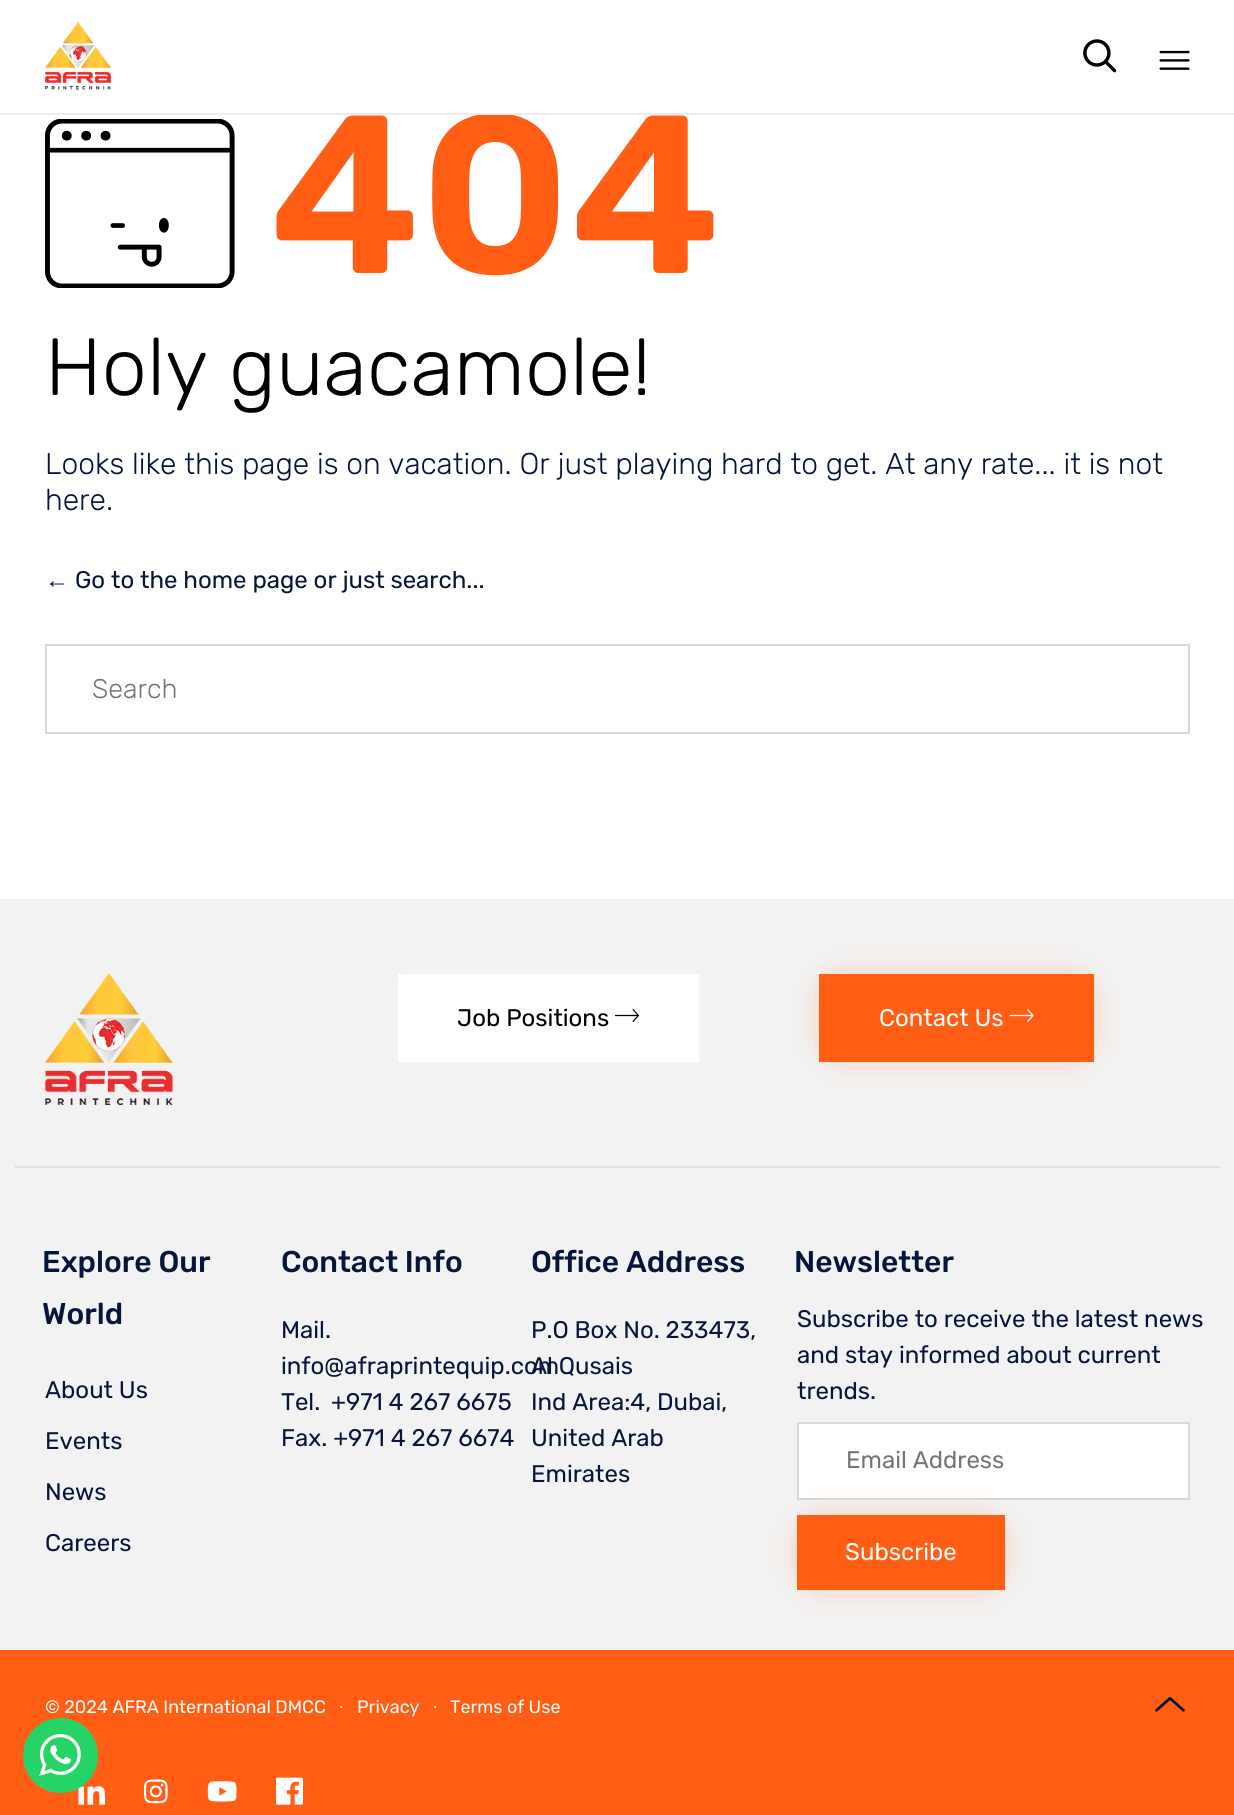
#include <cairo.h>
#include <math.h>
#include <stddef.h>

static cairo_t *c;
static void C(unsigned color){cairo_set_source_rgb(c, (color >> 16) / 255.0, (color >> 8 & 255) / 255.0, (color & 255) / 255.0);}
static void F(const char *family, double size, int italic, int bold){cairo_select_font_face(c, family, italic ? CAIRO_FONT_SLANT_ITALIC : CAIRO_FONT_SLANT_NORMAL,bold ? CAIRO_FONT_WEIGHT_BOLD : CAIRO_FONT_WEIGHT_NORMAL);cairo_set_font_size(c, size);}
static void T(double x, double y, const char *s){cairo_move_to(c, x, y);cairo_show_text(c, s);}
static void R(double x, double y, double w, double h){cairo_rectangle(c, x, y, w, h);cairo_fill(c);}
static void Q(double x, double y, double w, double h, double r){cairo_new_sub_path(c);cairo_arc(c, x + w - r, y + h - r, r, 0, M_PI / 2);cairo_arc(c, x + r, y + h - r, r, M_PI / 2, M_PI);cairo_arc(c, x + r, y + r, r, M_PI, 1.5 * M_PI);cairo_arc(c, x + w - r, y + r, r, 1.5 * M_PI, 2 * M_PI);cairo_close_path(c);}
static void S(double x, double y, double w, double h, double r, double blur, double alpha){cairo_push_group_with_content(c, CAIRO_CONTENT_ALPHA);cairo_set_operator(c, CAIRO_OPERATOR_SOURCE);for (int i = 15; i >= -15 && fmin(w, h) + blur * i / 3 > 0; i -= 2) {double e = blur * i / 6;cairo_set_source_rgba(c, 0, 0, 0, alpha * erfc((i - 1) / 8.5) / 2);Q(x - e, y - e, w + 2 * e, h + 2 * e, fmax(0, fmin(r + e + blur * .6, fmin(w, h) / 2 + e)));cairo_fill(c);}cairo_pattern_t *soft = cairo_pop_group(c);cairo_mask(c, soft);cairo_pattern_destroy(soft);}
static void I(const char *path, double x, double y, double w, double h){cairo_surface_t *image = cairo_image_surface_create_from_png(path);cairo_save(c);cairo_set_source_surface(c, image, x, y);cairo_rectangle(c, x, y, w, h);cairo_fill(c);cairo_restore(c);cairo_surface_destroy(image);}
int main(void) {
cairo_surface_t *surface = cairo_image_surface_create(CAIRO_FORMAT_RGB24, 1234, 1815);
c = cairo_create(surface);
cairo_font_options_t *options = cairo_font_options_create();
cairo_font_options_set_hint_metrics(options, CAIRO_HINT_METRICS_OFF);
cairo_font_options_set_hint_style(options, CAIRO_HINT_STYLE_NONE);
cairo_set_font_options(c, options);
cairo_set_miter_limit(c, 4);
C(0xffffff);
cairo_paint(c);
F("Rubik SemiBold",225,0,0);
C(0xff5e14);
T(270,273,"404");
C(0xededed);
R(0,113,1234,2);
I("1.png",45,22,66,68);
I("2.png",1083,39,34,34);
I("3.png",1159,50,31,20);
I("4.png",45,119,190,169);
F("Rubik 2 Light",81,0,0);
C(0x000000);
T(45,395,"Holy guacamole!");
F("Rubik 2 Light",30,0,0);
C(0x06163a);
T(45,474,"Looks like this page is on vacation. Or just playing hard to get. At any rate... it is not");
T(45,510,"here.");
F("Liberation Serif",24,0,0);
T(45,588,"←");
F("Rubik",24,0,0);
T(75,588,"Go to the home page or just search...");
cairo_rectangle(c,46,645,1143,88);
C(0xd8d8d8);
cairo_stroke(c);
F("Rubik 2 Light",27,0,0);
C(0x757575);
T(92,698,"Search");
C(0xf2f2f2);
R(0,899,1234,751);
I("5.png",45,973,128,132);
C(0xffffff);
S(419,995,259,46,0,19,1);
C(0xffffff);
R(398,974,301,88);
F("Rubik",24,0,0);
C(0x000000);
T(457,1026,"Job Positions");
I("6.png",615,1009,24,13);
C(0xff5e14);
S(840,995,233,46,0,19,1);
C(0xff5e14);
R(819,974,275,88);
C(0xffffff);
T(879,1026,"Contact Us");
I("7.png",1009,1009,25,13);
C(0xe0e0e0);
R(15,1166,1205,2);
F("Rubik Light",30,0,0);
C(0x06163a);
T(42,1272,"Explore Our");
T(42,1324,"World");
F("Rubik",24,0,0);
T(45,1398,"About Us");
T(45,1449,"Events");
T(45,1500,"News");
T(45,1551,"Careers");
F("Rubik Light",30,0,0);
T(281,1272,"Contact Info");
F("Rubik",24,0,0);
T(281,1338,"Mail.");
T(281,1374,"info@afraprintequip.com");
T(281,1410,"Tel.");
T(331,1410,"+971 4 267 6675");
T(281,1446,"Fax. +971 4 267 6674");
F("Rubik Light",30,0,0);
T(531,1272,"Office Address");
F("Rubik",24,0,0);
T(531,1338,"P.O Box No. 233473,");
T(531,1374,"Al Qusais");
T(531,1410,"Ind Area:4, Dubai,");
T(531,1446,"United Arab");
T(531,1482,"Emirates");
F("Rubik Light",30,0,0);
T(794,1272,"Newsletter");
F("Rubik",24,0,0);
T(797,1327,"Subscribe to receive the latest news");
T(797,1363,"and stay informed about current");
T(797,1399,"trends.");
C(0xffffff);
cairo_rectangle(c,798,1423,391,76);
cairo_fill_preserve(c);
C(0xd8d8d8);
cairo_stroke(c);
C(0x757575);
T(846,1468,"Email Address");
C(0xff5e14);
S(818,1536,166,33,0,19,1);
C(0xff5e14);
R(797,1515,208,75);
C(0xffffff);
T(845,1560,"Subscribe");
C(0xff5e14);
R(0,1650,1234,165);
F("Rubik",18,0,0);
C(0xffffff);
T(45,1713,"© 2024 AFRA International DMCC");
F("Liberation Serif",18,0,0);
T(339,1713,"∙");
F("Rubik",18,0,0);
T(357,1713,"Privacy");
F("Liberation Serif",18,0,0);
T(433,1713,"∙");
F("Rubik",18,0,0);
T(450,1713,"Terms of Use");
I("8.png",78,1786,27,19);
I("9.png",144,1779,24,25);
I("10.png",207,1781,30,21);
I("11.png",276,1777,27,28);
I("12.png",1155,1696,30,16);
C(0x25d366);
cairo_arc(c,60.5,1755.5,37.5,0,2 * M_PI);
cairo_fill(c);
I("13.png",39,1734,42,42);
cairo_surface_write_to_png(surface, "o.png");
cairo_font_options_destroy(options);
cairo_destroy(c);
cairo_surface_destroy(surface);
return 0;
}
